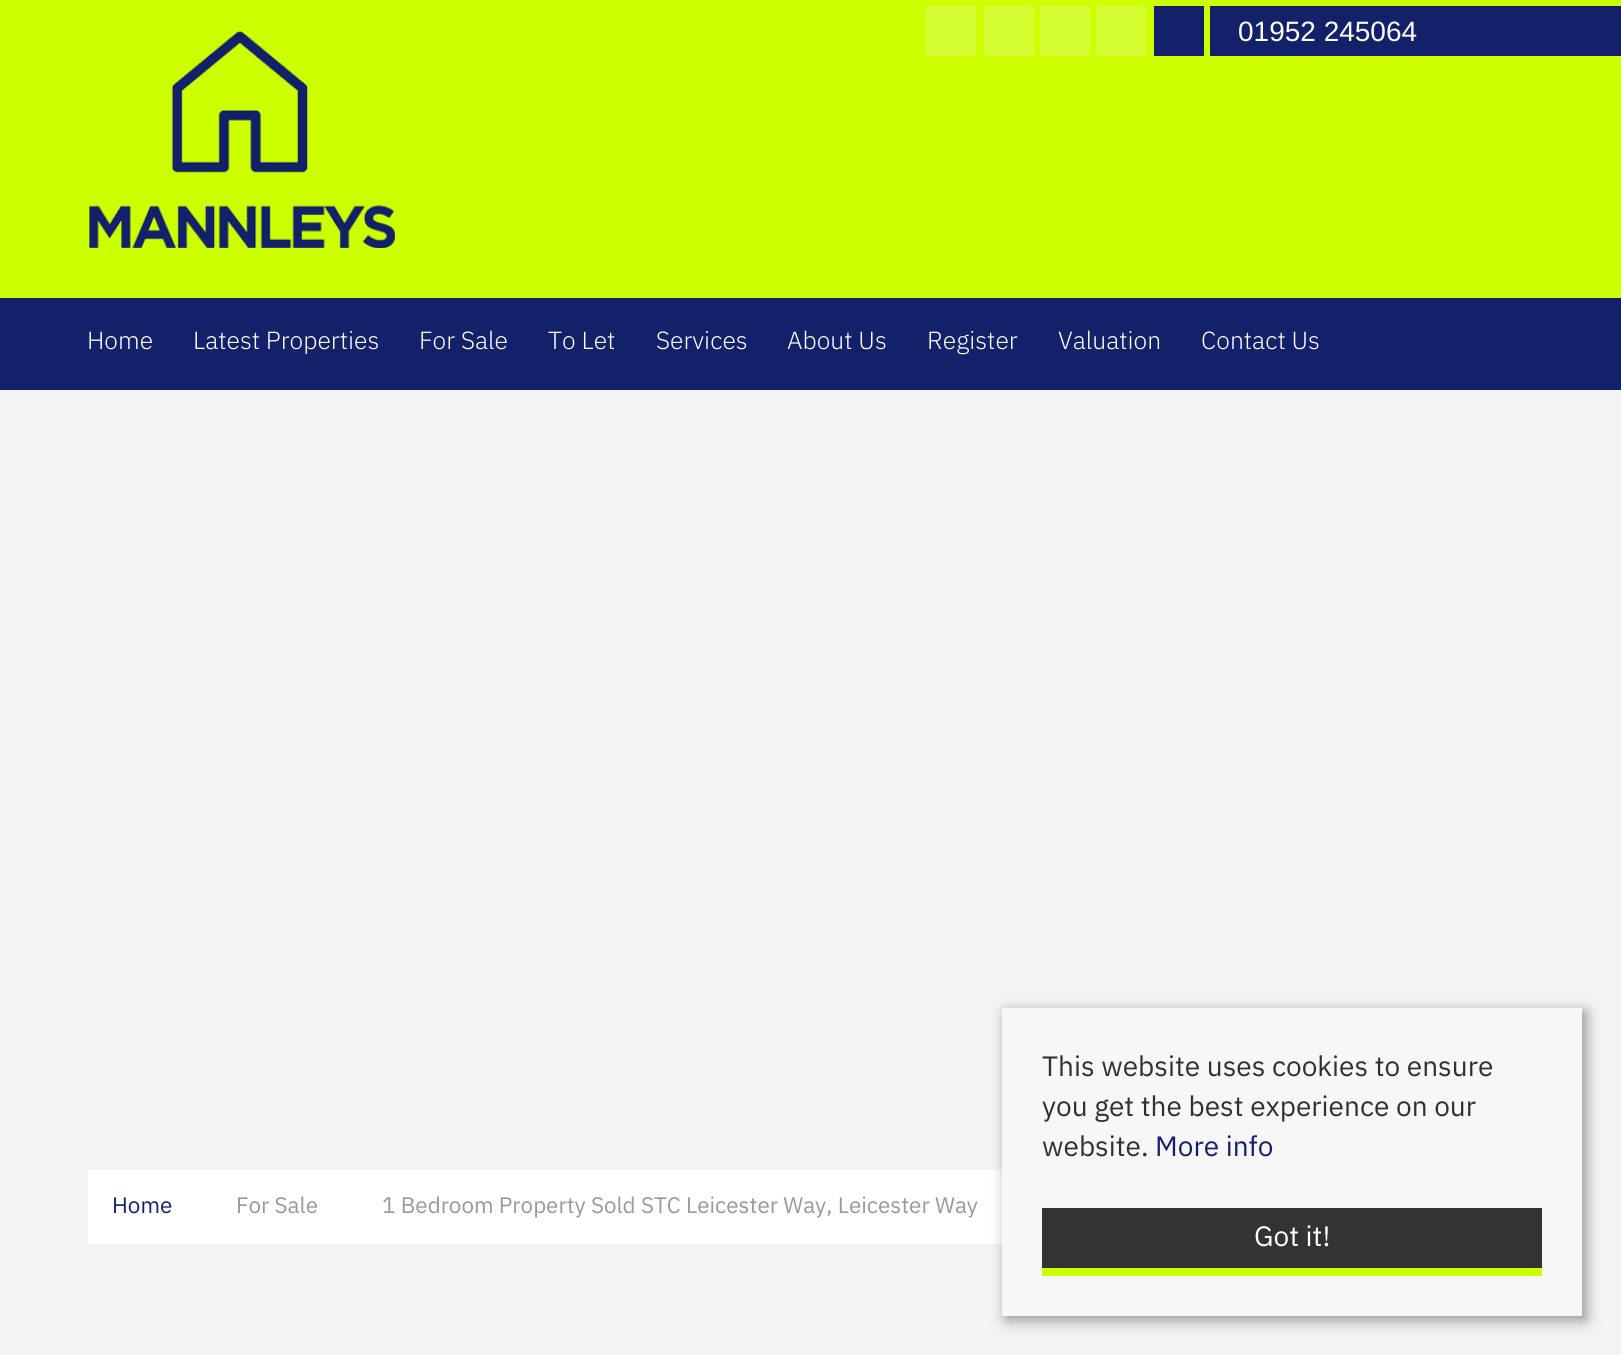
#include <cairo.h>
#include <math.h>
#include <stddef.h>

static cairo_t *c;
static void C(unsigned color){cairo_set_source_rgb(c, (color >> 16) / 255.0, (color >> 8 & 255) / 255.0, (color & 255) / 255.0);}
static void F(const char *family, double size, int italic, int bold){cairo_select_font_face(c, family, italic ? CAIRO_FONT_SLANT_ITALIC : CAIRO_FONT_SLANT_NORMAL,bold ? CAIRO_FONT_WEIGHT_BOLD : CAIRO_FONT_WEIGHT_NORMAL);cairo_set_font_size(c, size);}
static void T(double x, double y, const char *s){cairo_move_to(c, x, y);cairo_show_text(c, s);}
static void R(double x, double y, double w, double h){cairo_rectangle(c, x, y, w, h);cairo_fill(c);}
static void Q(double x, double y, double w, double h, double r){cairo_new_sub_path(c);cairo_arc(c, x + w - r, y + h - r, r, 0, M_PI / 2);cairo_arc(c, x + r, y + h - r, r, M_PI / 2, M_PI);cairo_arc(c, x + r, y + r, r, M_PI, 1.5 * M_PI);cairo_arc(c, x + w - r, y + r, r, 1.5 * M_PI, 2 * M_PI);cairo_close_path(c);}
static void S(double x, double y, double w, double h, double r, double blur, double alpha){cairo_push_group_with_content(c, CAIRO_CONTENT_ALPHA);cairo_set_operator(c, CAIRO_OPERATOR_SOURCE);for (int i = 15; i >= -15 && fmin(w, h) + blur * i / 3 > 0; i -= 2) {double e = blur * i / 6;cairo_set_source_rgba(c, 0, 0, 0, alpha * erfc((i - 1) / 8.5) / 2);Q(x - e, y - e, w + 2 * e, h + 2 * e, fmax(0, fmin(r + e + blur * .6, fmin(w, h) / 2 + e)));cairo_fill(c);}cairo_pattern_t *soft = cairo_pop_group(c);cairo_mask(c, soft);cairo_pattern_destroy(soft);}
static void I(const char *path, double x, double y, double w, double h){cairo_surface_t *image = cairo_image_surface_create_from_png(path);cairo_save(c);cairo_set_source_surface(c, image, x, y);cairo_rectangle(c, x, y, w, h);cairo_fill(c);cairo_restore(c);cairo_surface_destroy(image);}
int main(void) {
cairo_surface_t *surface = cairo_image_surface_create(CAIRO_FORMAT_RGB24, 1621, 1355);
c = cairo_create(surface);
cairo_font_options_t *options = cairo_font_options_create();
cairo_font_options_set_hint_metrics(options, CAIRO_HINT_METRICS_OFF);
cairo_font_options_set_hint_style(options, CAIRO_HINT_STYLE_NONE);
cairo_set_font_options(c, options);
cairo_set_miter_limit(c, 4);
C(0x13216a);
cairo_paint(c);
C(0xccff00);
R(0,0,1621,298);
I("1.png",89,31,306,217);
C(0xd6ff33);
R(926,6,50,50);
R(984,6,50,50);
R(1040,6,50,50);
R(1096,6,50,50);
C(0x13216a);
R(1154,6,50,50);
R(1210,6,411,50);
F("Liberation Sans",28,0,0);
C(0xffffff);
T(1238,41,"01952 245064");
F("IBM Plex Sans Arabic Light",24.75,0,0);
T(87,349,"Home");
T(193,349,"Latest Properties");
T(419,349,"For Sale");
T(548,349,"To Let");
T(656,349,"Services");
T(787,349,"About Us");
T(927,349,"Register");
T(1058,349,"Valuation");
T(1201,349,"Contact Us");
C(0xf3f3f3);
R(0,390,1621,965);
C(0xffffff);
R(88,1170,914,74);
F("IBM Plex Sans Arabic",22.4,0,0);
C(0x13216a);
T(112,1213,"Home");
C(0x999999);
T(236,1213,"For Sale");
T(382,1213,"1 Bedroom Property Sold STC Leicester Way, Leicester Way");
C(0x000000);
S(1006,1012,580,308,0,7,.4);
C(0xf7f7f7);
R(1002,1008,580,308);
F("IBM Plex Sans Arabic",28,0,0);
C(0x313131);
T(1042,1076,"This website uses cookies to ensure");
T(1042,1116,"you get the best experience on our");
T(1042,1156,"website.");
C(0x13216a);
T(1155,1156,"More info");
C(0x333333);
R(1042,1208,500,60);
C(0xccff00);
R(1042,1268,500,8);
C(0xffffff);
T(1254,1246,"Got it!");
cairo_surface_write_to_png(surface, "o.png");
cairo_font_options_destroy(options);
cairo_destroy(c);
cairo_surface_destroy(surface);
return 0;
}
